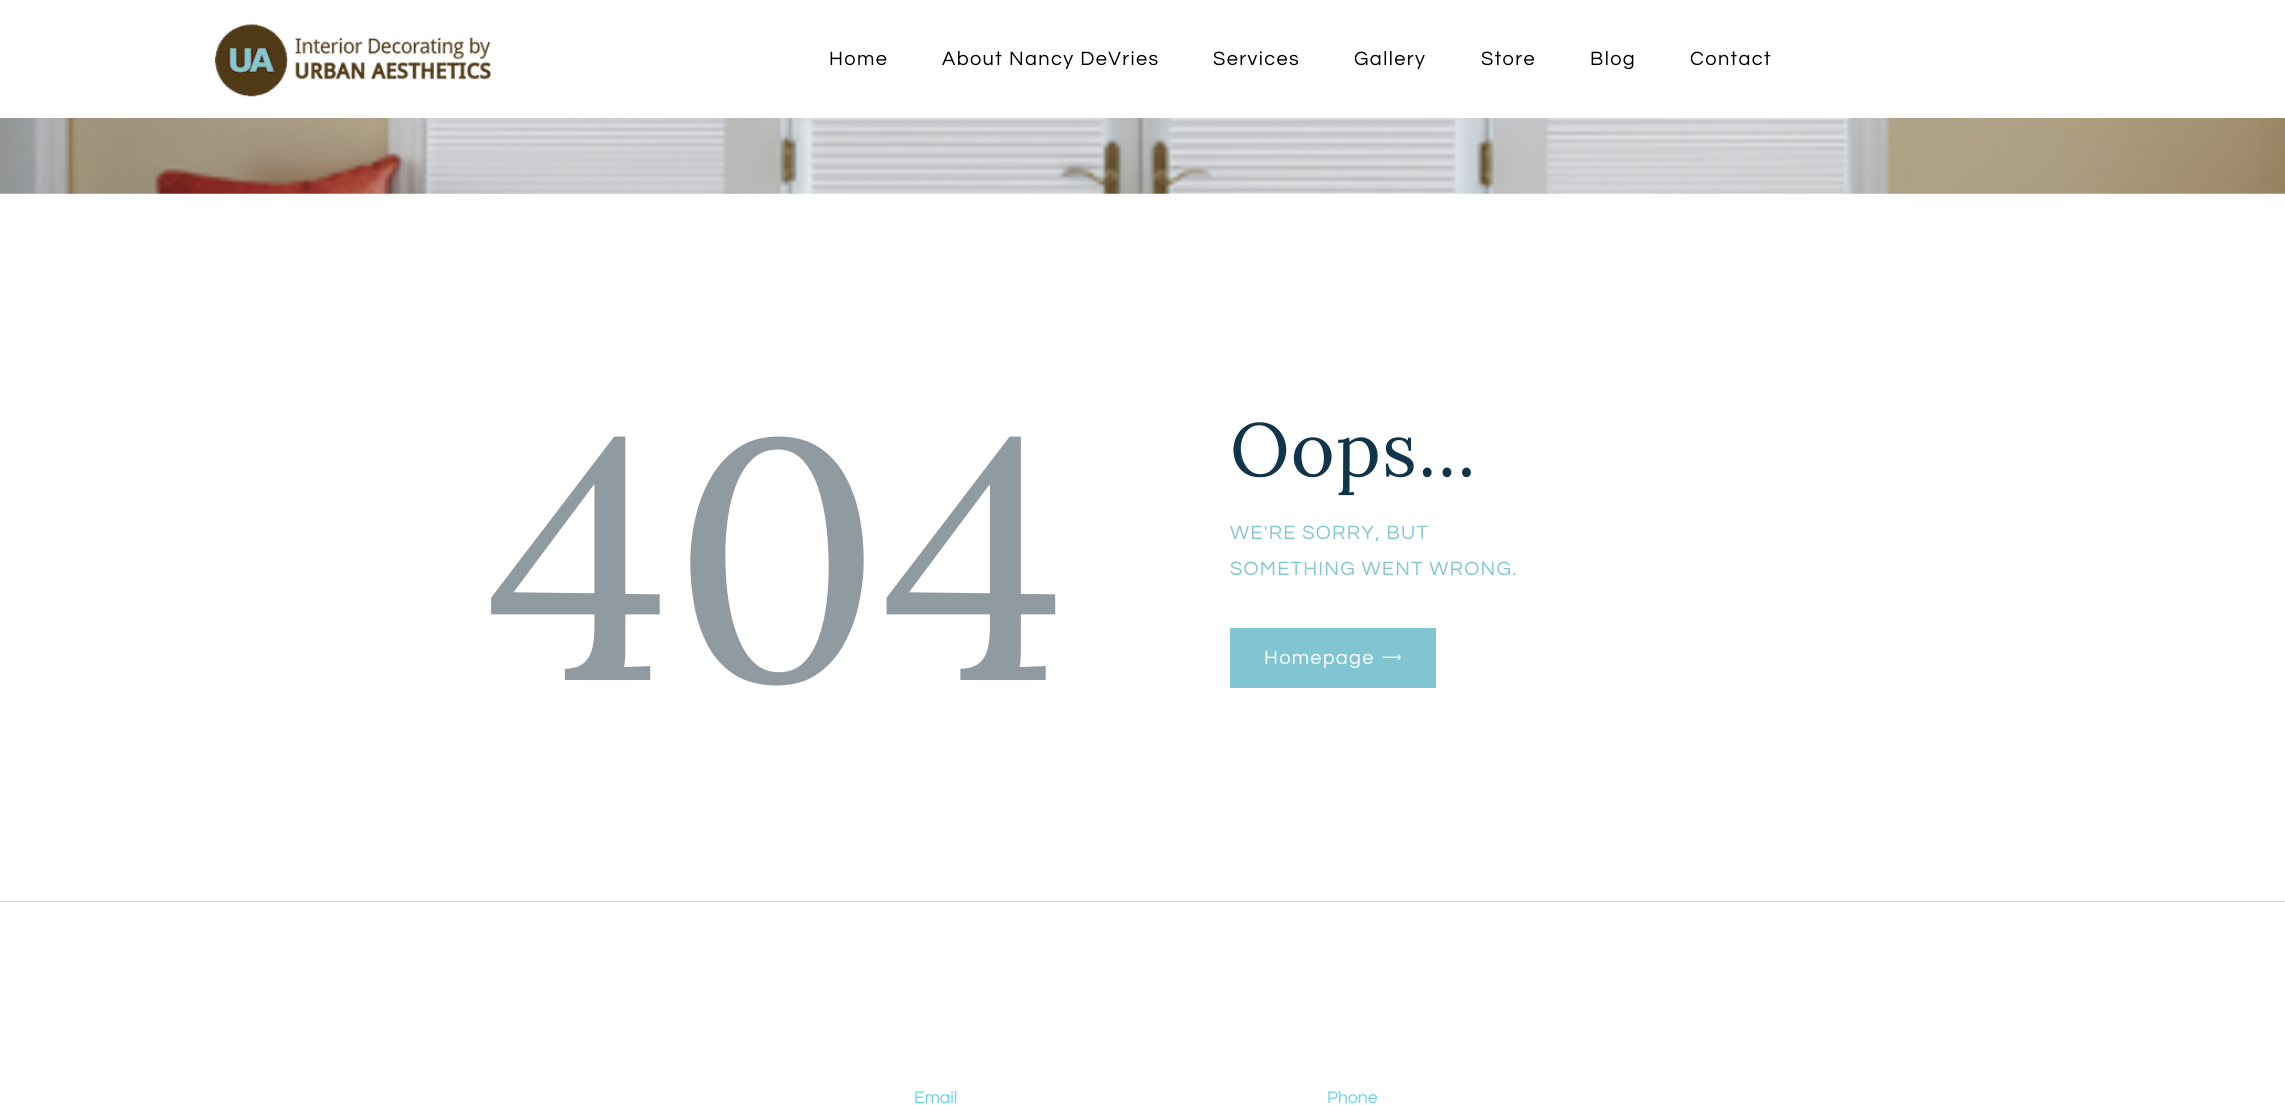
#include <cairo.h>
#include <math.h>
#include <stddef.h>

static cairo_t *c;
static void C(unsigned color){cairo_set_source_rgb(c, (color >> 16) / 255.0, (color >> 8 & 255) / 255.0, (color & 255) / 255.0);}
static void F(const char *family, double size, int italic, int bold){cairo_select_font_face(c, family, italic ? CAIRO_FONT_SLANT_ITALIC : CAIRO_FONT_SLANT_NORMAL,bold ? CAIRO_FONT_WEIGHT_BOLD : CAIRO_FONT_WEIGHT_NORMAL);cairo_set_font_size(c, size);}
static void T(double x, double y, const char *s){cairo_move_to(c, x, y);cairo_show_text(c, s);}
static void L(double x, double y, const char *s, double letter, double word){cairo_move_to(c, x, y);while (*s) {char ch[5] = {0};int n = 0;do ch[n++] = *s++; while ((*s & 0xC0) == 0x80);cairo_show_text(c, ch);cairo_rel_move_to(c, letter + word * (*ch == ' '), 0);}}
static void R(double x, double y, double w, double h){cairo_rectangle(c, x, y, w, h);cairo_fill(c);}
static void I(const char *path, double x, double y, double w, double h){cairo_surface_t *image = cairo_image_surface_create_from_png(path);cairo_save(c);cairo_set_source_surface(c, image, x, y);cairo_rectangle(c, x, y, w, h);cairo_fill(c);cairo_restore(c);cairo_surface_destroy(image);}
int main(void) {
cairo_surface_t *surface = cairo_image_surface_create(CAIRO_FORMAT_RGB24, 2285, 1105);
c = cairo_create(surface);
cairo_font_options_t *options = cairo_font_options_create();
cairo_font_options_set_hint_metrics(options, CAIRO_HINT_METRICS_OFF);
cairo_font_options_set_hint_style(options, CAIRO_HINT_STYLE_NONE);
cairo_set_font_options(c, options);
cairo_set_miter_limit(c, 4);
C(0xffffff);
cairo_paint(c);
I("1.png",0,118,2285,76);
I("2.png",215,23,277,74);
F("Questrial",20,0,0);
C(0x000000);
L(829,65,"Home",1.4,0);
L(942,65,"About Nancy DeVries",1.4,0);
L(1213,65,"Services",1.4,0);
L(1354,65,"Gallery",1.4,0);
L(1481,65,"Store",1.4,0);
L(1590,65,"Blog",1.4,0);
L(1690,65,"Contact",1.4,0);
F("Lora",340,0,0);
C(0x909aa1);
T(487,680,"404");
F("Lora",75,0,0);
C(0x103449);
L(1230,476,"Oops...",1.25,0);
F("Questrial",20,0,0);
C(0x81c5d3);
L(1230,539,"WE'RE SORRY, BUT",1.25,0);
L(1230,575,"SOMETHING WENT WRONG.",1.25,0);
R(1230,628,206,60);
C(0xffffff);
L(1264,664,"Homepage",1.25,0);
I("3.png",1382,654,19,6);
C(0xcfd6db);
R(0,901,2285,1);
F("Questrial",17.5,0,0);
C(0x68d1e6);
T(914,1103,"Email");
T(1327,1103,"Phone");
cairo_surface_write_to_png(surface, "o.png");
cairo_font_options_destroy(options);
cairo_destroy(c);
cairo_surface_destroy(surface);
return 0;
}
